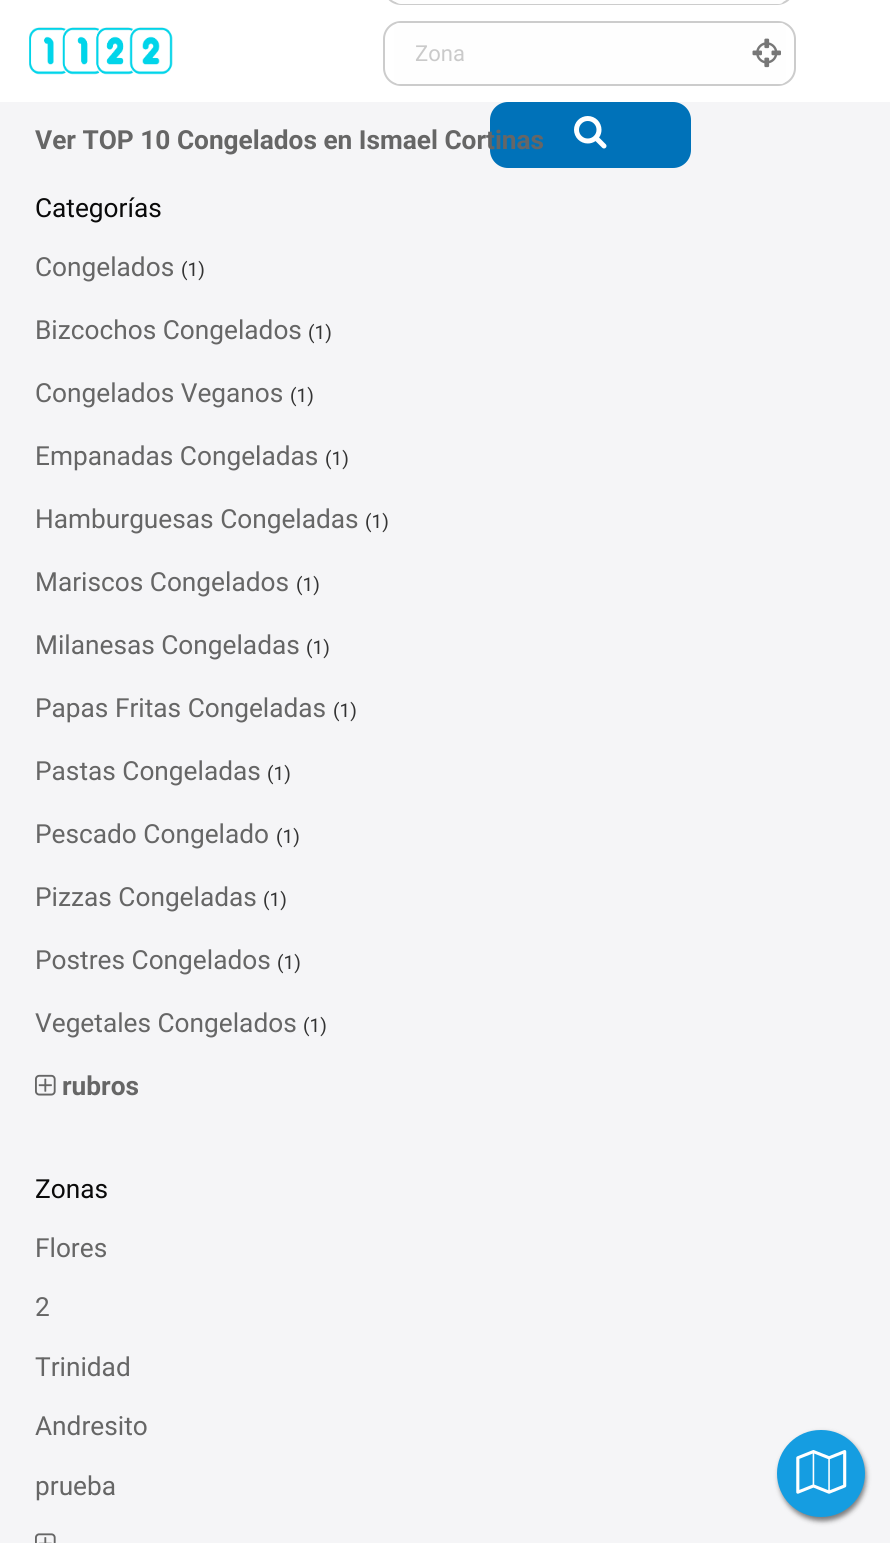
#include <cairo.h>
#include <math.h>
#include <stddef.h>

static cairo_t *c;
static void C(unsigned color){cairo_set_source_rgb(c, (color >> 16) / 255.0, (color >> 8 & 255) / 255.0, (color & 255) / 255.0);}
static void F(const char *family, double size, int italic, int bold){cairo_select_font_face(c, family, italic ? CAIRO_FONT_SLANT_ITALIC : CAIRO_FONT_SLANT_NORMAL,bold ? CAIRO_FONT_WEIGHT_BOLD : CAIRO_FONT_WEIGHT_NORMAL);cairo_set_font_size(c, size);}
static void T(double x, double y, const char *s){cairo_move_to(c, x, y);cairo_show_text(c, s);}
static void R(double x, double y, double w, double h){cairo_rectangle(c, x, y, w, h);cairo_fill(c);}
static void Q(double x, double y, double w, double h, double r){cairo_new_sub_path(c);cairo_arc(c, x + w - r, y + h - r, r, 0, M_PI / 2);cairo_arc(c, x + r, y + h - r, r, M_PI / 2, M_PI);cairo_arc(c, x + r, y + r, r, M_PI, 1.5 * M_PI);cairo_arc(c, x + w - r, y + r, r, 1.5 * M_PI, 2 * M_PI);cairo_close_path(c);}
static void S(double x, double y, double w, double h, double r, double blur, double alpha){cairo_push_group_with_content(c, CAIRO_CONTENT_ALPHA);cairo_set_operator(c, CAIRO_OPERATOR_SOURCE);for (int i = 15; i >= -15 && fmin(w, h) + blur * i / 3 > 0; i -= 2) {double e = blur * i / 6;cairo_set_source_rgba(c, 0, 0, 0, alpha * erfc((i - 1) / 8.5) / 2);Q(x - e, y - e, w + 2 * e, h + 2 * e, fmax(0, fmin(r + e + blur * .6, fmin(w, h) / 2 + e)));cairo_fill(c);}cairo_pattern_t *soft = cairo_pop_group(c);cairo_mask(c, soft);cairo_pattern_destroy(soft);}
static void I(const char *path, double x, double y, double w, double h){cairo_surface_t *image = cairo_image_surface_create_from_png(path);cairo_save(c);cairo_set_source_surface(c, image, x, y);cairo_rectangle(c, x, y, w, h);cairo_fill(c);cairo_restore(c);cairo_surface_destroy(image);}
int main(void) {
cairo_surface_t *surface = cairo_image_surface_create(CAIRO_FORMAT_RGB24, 890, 1543);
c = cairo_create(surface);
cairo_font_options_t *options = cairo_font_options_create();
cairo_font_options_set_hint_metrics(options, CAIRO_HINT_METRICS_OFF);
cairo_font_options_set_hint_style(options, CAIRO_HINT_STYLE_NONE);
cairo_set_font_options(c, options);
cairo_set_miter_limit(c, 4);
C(0xf5f5f7);
cairo_paint(c);
C(0xffffff);
R(0,0,890,102);
I("1.png",29,27,144,48);
Q(384,-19,410,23,17);
C(0xcccccc);
cairo_stroke(c);
C(0xfefefe);
cairo_new_path(c);
cairo_move_to(c,401,-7);
cairo_line_to(c,779,-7);
cairo_curve_to(c,782,-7,784,-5,784,-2);
cairo_line_to(c,784,-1);
cairo_curve_to(c,784,2,782,4,779,4);
cairo_line_to(c,401,4);
cairo_curve_to(c,397,4,394,1,394,-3);
cairo_line_to(c,394,0);
cairo_curve_to(c,394,-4,397,-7,401,-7);
cairo_close_path(c);
cairo_fill(c);
Q(384,22,411,63,17);
C(0xcccccc);
cairo_stroke(c);
C(0xfefefe);
Q(394,23,392,61,5);
cairo_fill(c);
F("Roboto",22,0,0);
C(0xcacaca);
T(415,61,"Zona");
I("2.png",752,38,29,30);
C(0x0072b9);
Q(490,102,201,66,18);
cairo_fill(c);
I("3.png",574,116,33,33);
F("Roboto",26.25,0,1);
C(0x666666);
T(35,149,"Ver TOP 10 Congelados en Ismael Cortinas");
F("Roboto",26.25,0,0);
C(0x0a0a0a);
T(35,217,"Categorías");
C(0x666666);
T(35,276,"Congelados");
F("Roboto",19,0,0);
C(0x333333);
T(181,276,"(1)");
F("Roboto",26.25,0,0);
C(0x666666);
T(35,339,"Bizcochos Congelados");
F("Roboto",19,0,0);
C(0x333333);
T(308,339,"(1)");
F("Roboto",26.25,0,0);
C(0x666666);
T(35,402,"Congelados Veganos");
F("Roboto",19,0,0);
C(0x333333);
T(290,402,"(1)");
F("Roboto",26.25,0,0);
C(0x666666);
T(35,465,"Empanadas Congeladas");
F("Roboto",19,0,0);
C(0x333333);
T(325,465,"(1)");
F("Roboto",26.25,0,0);
C(0x666666);
T(35,528,"Hamburguesas Congeladas");
F("Roboto",19,0,0);
C(0x333333);
T(365,528,"(1)");
F("Roboto",26.25,0,0);
C(0x666666);
T(35,591,"Mariscos Congelados");
F("Roboto",19,0,0);
C(0x333333);
T(296,591,"(1)");
F("Roboto",26.25,0,0);
C(0x666666);
T(35,654,"Milanesas Congeladas");
F("Roboto",19,0,0);
C(0x333333);
T(306,654,"(1)");
F("Roboto",26.25,0,0);
C(0x666666);
T(35,717,"Papas Fritas Congeladas");
F("Roboto",19,0,0);
C(0x333333);
T(333,717,"(1)");
F("Roboto",26.25,0,0);
C(0x666666);
T(35,780,"Pastas Congeladas");
F("Roboto",19,0,0);
C(0x333333);
T(267,780,"(1)");
F("Roboto",26.25,0,0);
C(0x666666);
T(35,843,"Pescado Congelado");
F("Roboto",19,0,0);
C(0x333333);
T(276,843,"(1)");
F("Roboto",26.25,0,0);
C(0x666666);
T(35,906,"Pizzas Congeladas");
F("Roboto",19,0,0);
C(0x333333);
T(263,906,"(1)");
F("Roboto",26.25,0,0);
C(0x666666);
T(35,969,"Postres Congelados");
F("Roboto",19,0,0);
C(0x333333);
T(277,969,"(1)");
F("Roboto",26.25,0,0);
C(0x666666);
T(35,1032,"Vegetales Congelados");
F("Roboto",19,0,0);
C(0x333333);
T(303,1032,"(1)");
I("4.png",35,1074,21,22);
F("Roboto",26.25,0,1);
C(0x666666);
T(62,1095,"rubros");
F("Roboto",26.25,0,0);
C(0x0a0a0a);
T(35,1198,"Zonas");
C(0x666666);
T(35,1257,"Flores");
T(35,1316,"2");
T(35,1376,"Trinidad");
T(35,1435,"Andresito");
T(35,1495,"prueba");
I("5.png",35,1533,21,10);
C(0x000000);
S(779,1433,87,88,43.5,2.5,.5);
C(0x159de1);
Q(777,1430,88,87,43.5);
cairo_fill(c);
I("6.png",796,1450,51,44);
cairo_surface_write_to_png(surface, "o.png");
cairo_font_options_destroy(options);
cairo_destroy(c);
cairo_surface_destroy(surface);
return 0;
}
